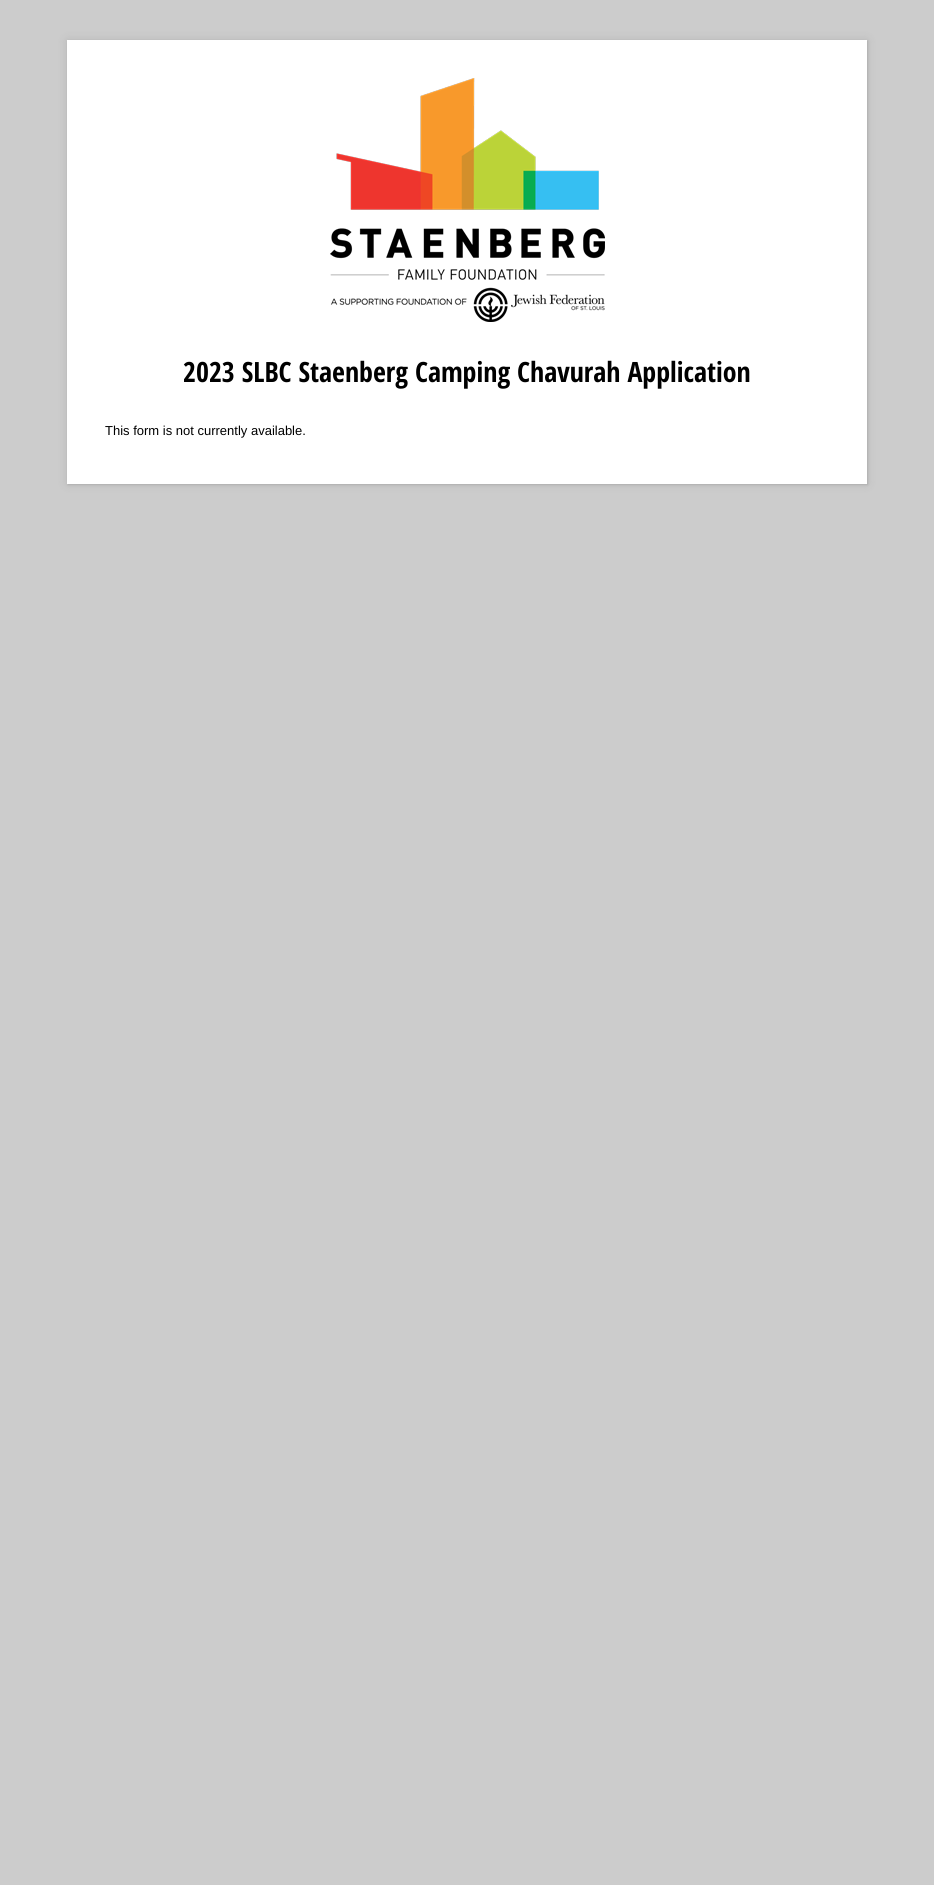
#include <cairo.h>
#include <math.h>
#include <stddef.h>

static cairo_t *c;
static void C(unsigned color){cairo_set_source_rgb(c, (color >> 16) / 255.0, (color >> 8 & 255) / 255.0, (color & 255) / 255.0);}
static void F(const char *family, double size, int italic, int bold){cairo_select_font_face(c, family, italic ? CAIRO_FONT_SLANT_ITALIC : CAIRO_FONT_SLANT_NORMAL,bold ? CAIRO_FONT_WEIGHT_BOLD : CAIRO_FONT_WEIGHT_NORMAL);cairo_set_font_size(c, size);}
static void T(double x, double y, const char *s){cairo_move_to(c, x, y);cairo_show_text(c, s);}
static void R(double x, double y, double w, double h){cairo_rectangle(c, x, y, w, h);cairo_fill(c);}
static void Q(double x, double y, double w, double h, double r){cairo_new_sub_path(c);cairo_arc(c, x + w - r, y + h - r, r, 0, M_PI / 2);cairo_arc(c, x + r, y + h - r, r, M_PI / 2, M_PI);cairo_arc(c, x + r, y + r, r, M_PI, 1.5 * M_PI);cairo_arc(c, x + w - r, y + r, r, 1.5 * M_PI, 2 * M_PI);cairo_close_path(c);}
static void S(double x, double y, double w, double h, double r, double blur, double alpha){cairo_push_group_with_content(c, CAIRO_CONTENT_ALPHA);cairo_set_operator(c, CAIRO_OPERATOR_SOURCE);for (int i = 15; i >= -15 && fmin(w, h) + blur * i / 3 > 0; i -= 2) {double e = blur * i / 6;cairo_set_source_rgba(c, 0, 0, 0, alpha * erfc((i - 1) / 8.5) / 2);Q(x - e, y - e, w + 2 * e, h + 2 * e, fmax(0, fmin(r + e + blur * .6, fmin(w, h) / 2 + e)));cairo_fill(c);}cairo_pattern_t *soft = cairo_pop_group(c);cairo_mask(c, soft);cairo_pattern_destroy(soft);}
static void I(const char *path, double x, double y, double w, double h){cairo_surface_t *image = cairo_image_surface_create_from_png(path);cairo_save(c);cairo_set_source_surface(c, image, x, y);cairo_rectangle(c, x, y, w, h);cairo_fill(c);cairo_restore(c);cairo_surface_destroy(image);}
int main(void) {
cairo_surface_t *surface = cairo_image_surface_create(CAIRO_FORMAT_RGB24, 934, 1885);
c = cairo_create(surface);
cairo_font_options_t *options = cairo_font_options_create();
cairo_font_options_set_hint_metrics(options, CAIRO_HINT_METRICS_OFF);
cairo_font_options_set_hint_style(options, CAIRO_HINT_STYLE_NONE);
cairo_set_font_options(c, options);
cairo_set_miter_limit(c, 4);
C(0xcccccc);
cairo_paint(c);
C(0x000000);
S(68,41,800,444,0,1,.1);
S(67,40,800,444,0,5,.1);
C(0xffffff);
R(67,40,800,444);
I("1.png",330,78,275,244);
F("Open Sans Condensed",27.95,0,1);
C(0x000000);
T(183,382,"2023 SLBC Staenberg Camping Chavurah Application");
F("Liberation Sans",13,0,0);
T(105,435,"This form is not currently available.");
cairo_surface_write_to_png(surface, "o.png");
cairo_font_options_destroy(options);
cairo_destroy(c);
cairo_surface_destroy(surface);
return 0;
}
